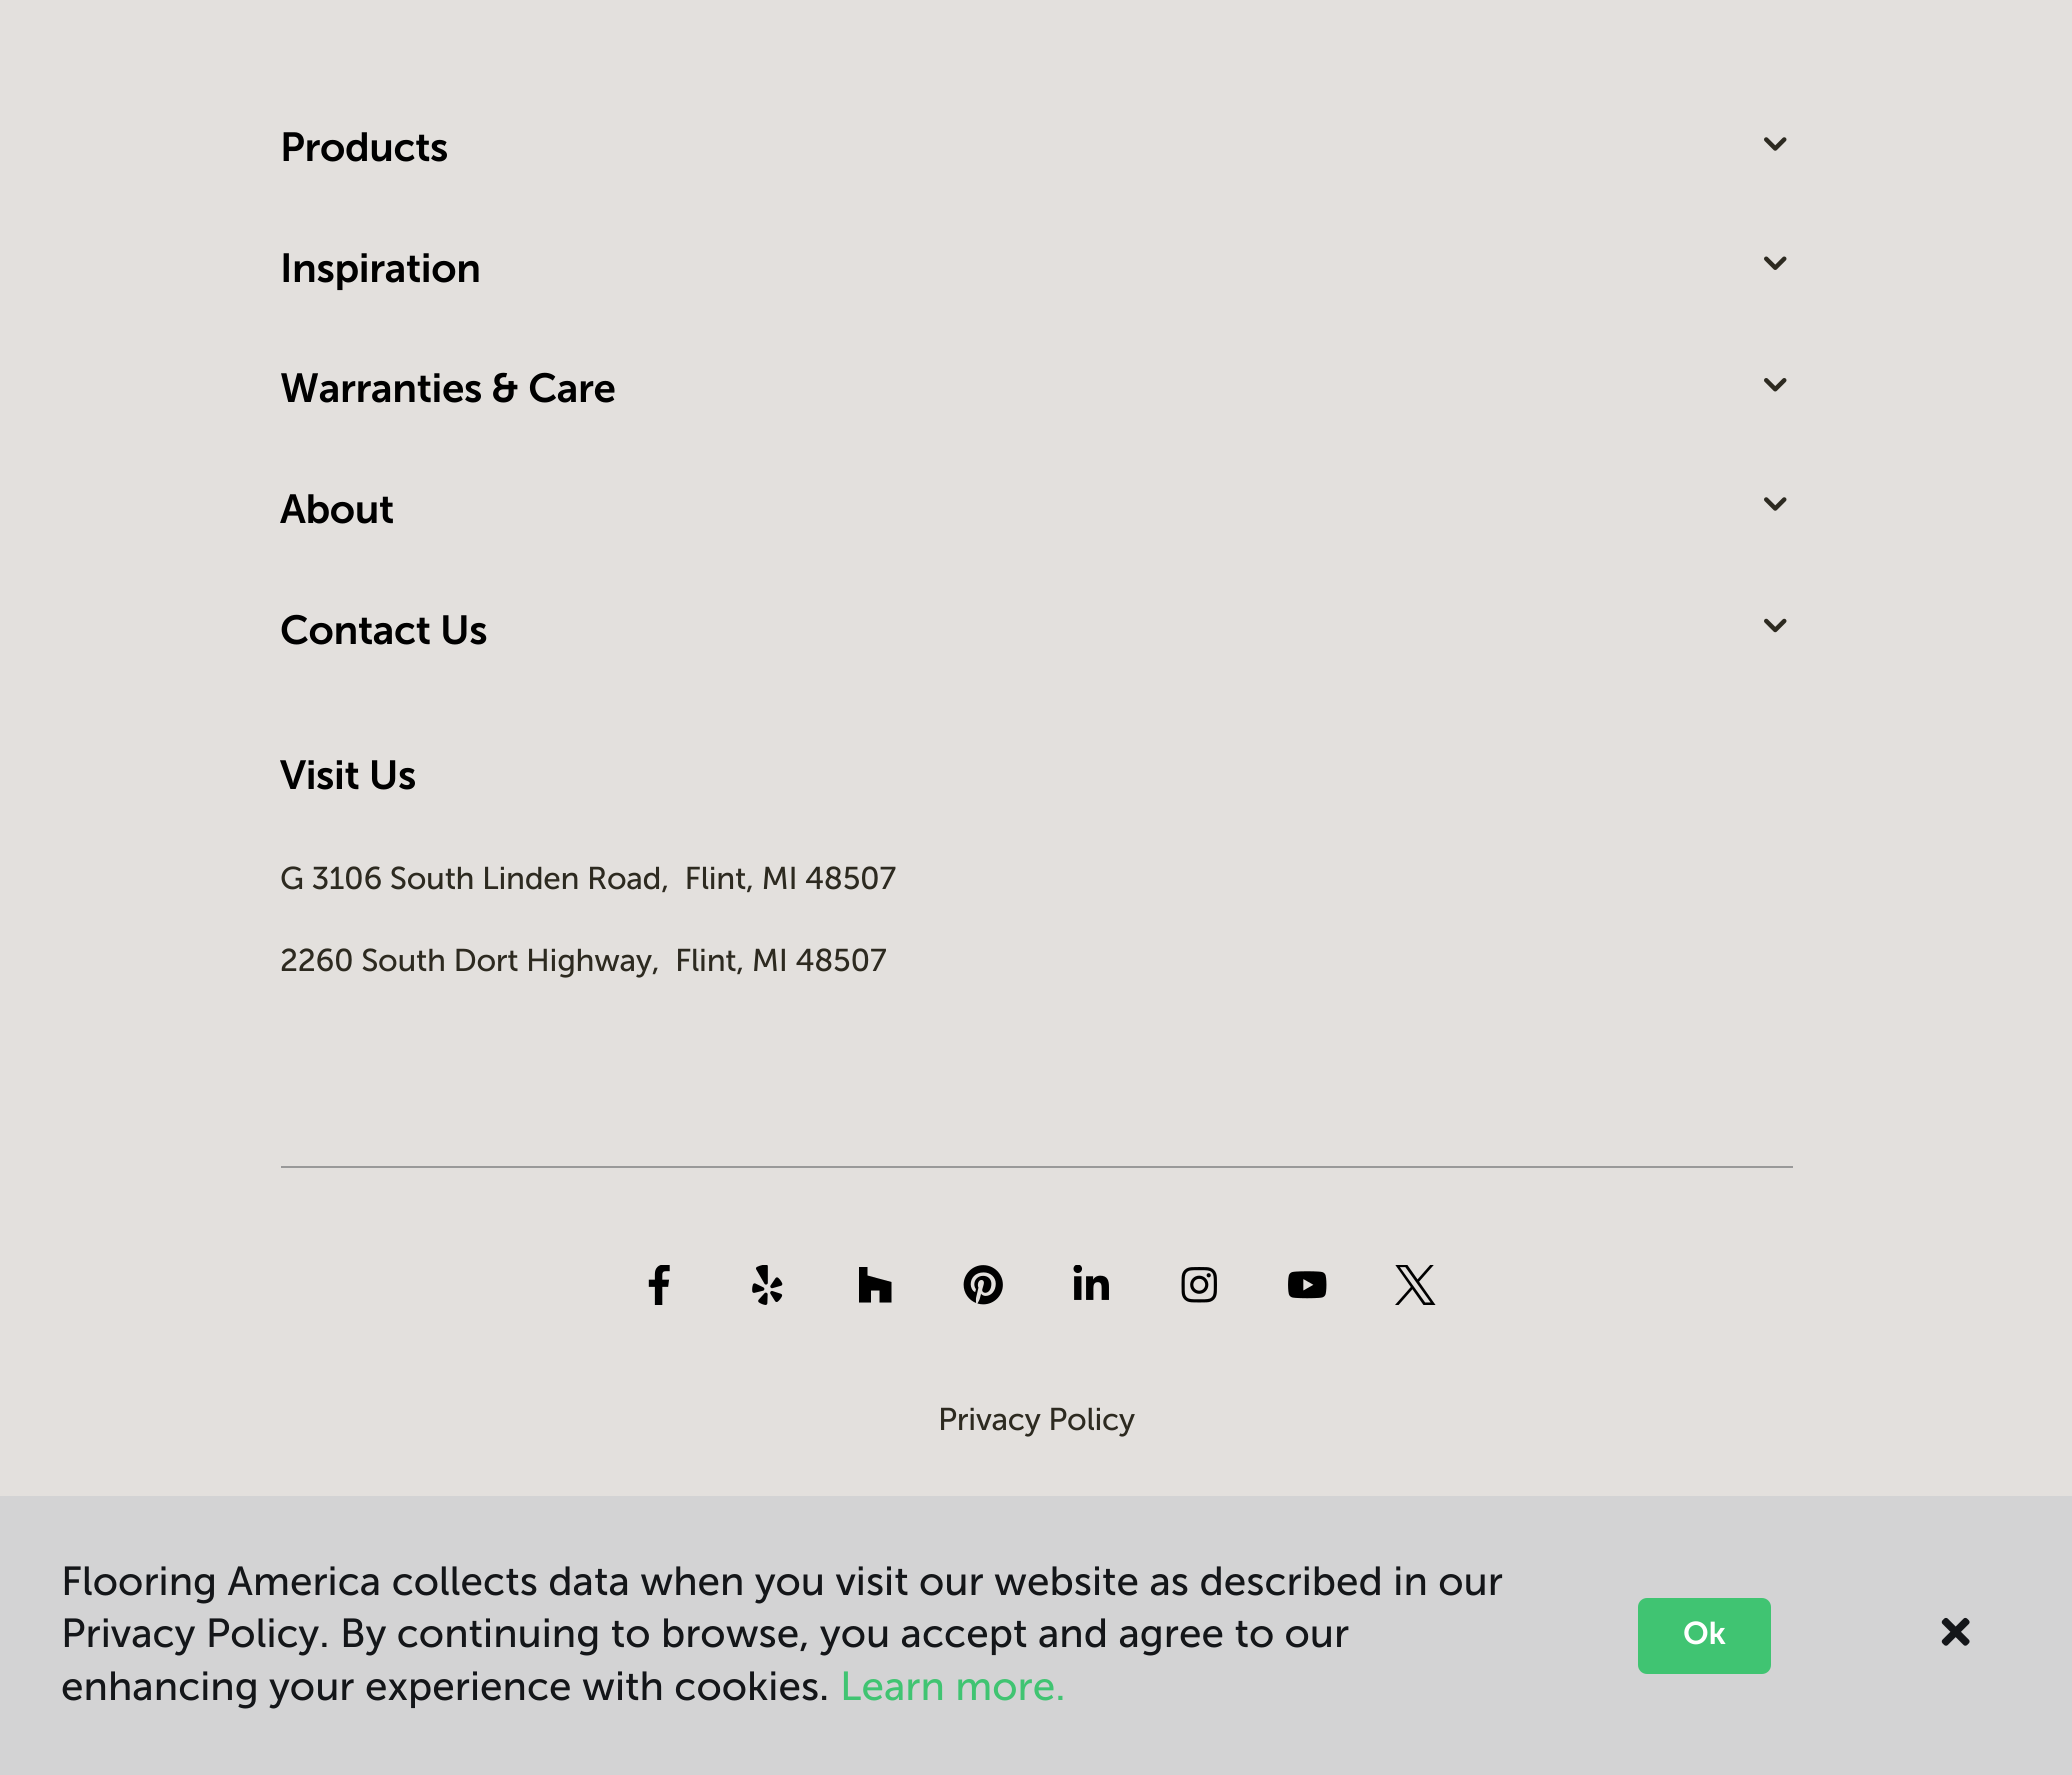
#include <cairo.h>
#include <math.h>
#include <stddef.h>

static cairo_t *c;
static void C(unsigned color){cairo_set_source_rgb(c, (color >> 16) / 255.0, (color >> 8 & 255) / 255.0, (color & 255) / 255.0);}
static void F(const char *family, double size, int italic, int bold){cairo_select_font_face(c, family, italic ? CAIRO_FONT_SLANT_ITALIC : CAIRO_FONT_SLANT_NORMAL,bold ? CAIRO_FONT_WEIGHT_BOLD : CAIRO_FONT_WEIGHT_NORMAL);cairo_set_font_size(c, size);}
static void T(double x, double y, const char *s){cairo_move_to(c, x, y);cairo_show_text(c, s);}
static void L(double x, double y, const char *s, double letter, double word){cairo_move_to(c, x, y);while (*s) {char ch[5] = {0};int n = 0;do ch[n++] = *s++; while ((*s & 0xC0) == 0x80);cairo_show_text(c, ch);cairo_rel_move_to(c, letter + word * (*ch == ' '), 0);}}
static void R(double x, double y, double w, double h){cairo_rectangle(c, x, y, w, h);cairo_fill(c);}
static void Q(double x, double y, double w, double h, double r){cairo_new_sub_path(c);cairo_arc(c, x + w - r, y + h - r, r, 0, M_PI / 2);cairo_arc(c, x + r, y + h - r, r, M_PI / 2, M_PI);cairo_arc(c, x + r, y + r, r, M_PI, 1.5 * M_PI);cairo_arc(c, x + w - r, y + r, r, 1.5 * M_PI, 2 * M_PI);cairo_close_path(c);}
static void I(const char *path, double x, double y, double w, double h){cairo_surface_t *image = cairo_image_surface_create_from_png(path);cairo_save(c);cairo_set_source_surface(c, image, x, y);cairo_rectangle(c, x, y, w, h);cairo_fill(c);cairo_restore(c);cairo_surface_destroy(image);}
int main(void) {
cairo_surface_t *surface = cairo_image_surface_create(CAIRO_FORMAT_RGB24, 2072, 1775);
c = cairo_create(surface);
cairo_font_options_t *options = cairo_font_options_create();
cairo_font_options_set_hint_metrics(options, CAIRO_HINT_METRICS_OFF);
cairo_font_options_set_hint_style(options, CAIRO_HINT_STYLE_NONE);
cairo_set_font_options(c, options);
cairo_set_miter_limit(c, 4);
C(0xe3e0dd);
cairo_paint(c);
C(0x999999);
R(281,1166,1512,2);
F("Museo Sans SemiBold",40.5,0,0);
C(0x000000);
L(280,161,"Products",-.4,0);
I("1.png",1764,137,23,14);
L(280,282,"Inspiration",-.4,0);
I("2.png",1764,256,23,14);
L(280,402,"Warranties & Care",-.4,0);
I("3.png",1764,378,23,14);
L(280,523,"About",-.4,0);
I("1.png",1764,497,23,14);
L(280,644,"Contact Us",-.4,0);
I("4.png",1764,618,23,15);
L(280,789,"Visit Us",-.4,0);
F("Museo Sans",31.5,0,0);
C(0x2d2a20);
L(280,889,"G 3106 South Linden Road,  Flint, MI 48507",-.3,0);
L(280,971,"2260 South Dort Highway,  Flint, MI 48507",-.3,0);
I("5.png",648,1265,22,40);
I("6.png",752,1265,31,40);
C(0x000000);
cairo_new_path(c);
cairo_move_to(c,879.5,1290.5);
cairo_line_to(c,871,1290.5);
cairo_line_to(c,871,1302.5);
cairo_line_to(c,859,1302.5);
cairo_line_to(c,859,1267);
cairo_line_to(c,867.5,1267);
cairo_line_to(c,867.5,1275.5);
cairo_line_to(c,891.5,1282);
cairo_line_to(c,891.5,1302.5);
cairo_line_to(c,879.5,1302.5);
cairo_close_path(c);
cairo_fill(c);
I("7.png",963,1265,40,40);
I("8.png",1073,1265,36,35);
I("9.png",1181,1267,36,36);
I("10.png",1288,1271,39,28);
I("11.png",1395,1265,41,40);
C(0x2d2a20);
L(938,1430,"Privacy Policy",-.3,0);
C(0xd3d3d4);
R(0,1496,2072,279);
F("Museo Sans",40.5,0,0);
C(0x141619);
T(61,1595,"Flooring America collects data when you visit our website as described in our");
T(61,1647,"Privacy Policy. By continuing to browse, you accept and agree to our");
T(61,1700,"enhancing your experience with cookies.");
C(0x40c472);
T(840,1700,"Learn more.");
Q(1638,1598,133,76,9);
cairo_fill(c);
F("Museo Sans SemiBold",31.5,0,0);
C(0xffffff);
L(1683,1644,"Ok",-.3,0);
I("12.png",1941,1617,29,29);
cairo_surface_write_to_png(surface, "o.png");
cairo_font_options_destroy(options);
cairo_destroy(c);
cairo_surface_destroy(surface);
return 0;
}
